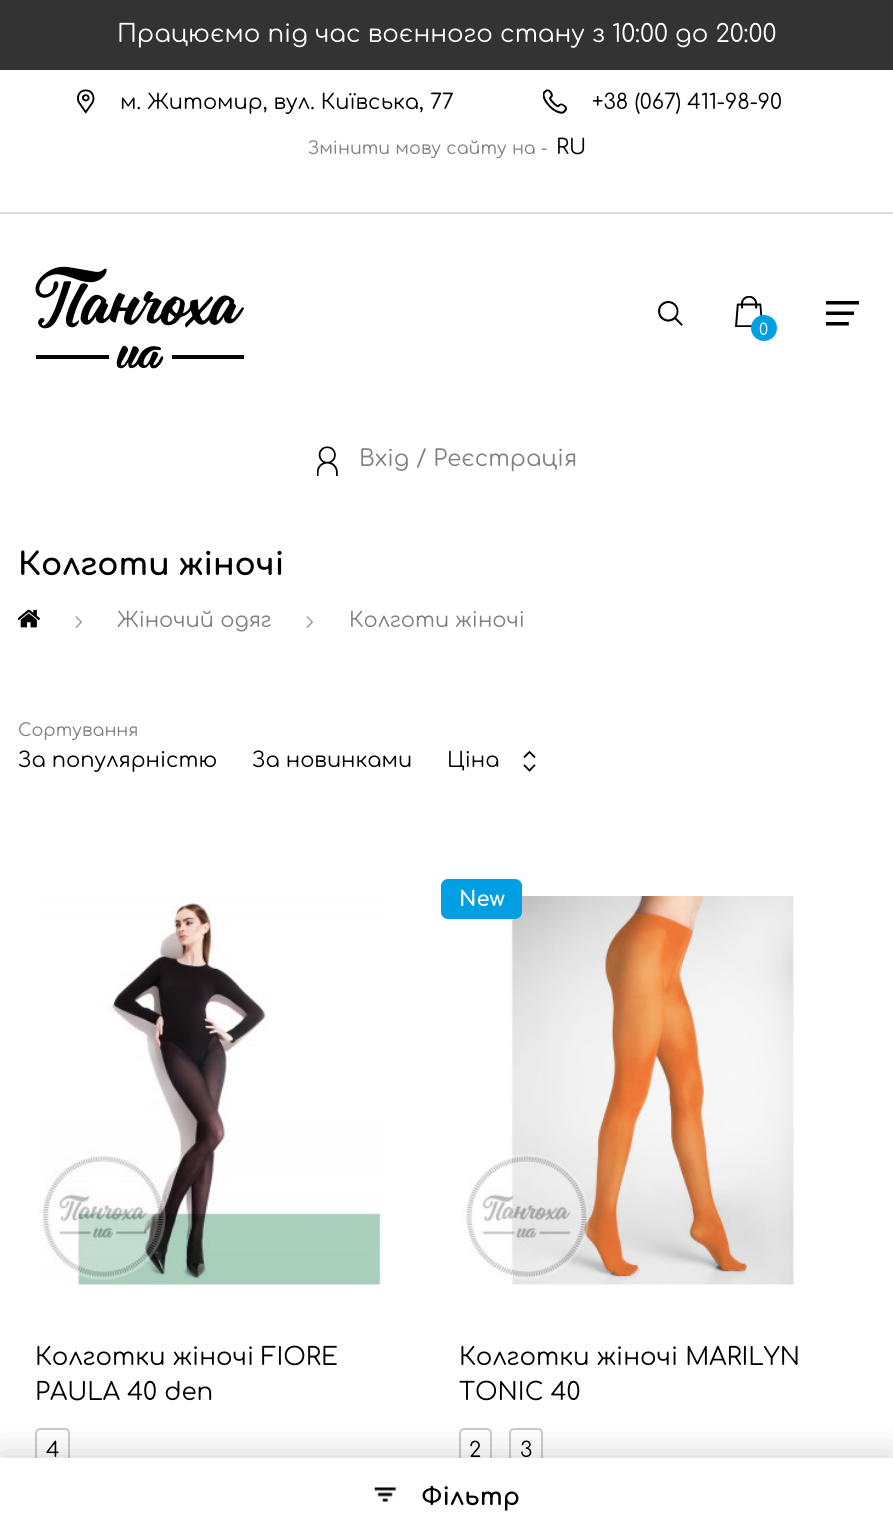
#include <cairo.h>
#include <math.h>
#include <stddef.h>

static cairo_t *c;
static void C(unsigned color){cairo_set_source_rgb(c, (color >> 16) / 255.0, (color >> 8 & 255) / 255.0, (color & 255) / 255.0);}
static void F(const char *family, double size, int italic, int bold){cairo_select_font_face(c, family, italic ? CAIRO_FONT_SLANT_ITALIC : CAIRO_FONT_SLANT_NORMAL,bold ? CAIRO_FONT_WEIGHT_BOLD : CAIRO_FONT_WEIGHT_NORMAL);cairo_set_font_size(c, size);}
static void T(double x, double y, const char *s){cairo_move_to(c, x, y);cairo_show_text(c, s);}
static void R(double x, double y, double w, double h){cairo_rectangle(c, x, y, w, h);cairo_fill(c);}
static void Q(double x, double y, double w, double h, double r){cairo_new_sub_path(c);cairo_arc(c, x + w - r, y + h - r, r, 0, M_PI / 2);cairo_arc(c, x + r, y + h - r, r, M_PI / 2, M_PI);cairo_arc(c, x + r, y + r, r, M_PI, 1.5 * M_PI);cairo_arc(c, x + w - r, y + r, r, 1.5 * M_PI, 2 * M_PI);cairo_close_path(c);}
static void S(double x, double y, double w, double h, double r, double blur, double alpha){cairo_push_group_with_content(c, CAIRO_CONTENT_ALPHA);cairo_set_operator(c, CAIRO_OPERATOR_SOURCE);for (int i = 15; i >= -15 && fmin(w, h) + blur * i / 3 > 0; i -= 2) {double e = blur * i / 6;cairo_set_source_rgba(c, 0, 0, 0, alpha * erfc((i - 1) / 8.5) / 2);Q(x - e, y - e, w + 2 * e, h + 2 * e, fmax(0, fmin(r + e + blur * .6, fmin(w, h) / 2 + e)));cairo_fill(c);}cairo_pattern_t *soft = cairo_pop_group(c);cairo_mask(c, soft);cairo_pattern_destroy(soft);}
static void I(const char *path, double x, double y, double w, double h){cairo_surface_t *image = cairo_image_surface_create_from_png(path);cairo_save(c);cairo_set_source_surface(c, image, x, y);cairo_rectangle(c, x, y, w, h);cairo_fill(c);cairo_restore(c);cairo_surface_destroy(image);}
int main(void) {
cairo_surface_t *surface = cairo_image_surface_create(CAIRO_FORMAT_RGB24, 893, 1535);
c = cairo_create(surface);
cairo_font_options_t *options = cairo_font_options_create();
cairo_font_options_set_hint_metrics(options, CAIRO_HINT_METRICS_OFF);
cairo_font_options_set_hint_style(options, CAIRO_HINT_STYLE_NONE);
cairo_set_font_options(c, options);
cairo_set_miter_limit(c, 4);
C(0xffffff);
cairo_paint(c);
C(0x333333);
R(0,0,893,70);
F("Comfortaa",24.5,0,0);
C(0xffffff);
T(117,42,"Працюємо під час воєнного стану з 10:00 до 20:00");
C(0xdcdcdc);
R(0,212,893,2);
I("1.png",77,89,18,25);
F("Comfortaa",21,0,0);
C(0x000000);
T(120,109,"м. Житомир, вул. Київська, 77");
I("2.png",543,89,24,25);
T(592,109,"+38 (067) 411-98-90");
F("Comfortaa",17.5,0,0);
C(0x808080);
T(308,154,"Змінити мову сайту на -");
F("Comfortaa",21,0,0);
C(0x000000);
T(556,154,"RU");
I("3.png",35,266,209,103);
I("4.png",658,301,25,25);
I("5.png",735,296,28,31);
C(0x009fe3);
cairo_arc(c,764,328,13,0,2 * M_PI);
cairo_fill(c);
F("Comfortaa",16,0,0);
C(0xffffff);
T(759,335,"0");
I("6.png",826,301,33,25);
I("7.png",317,446,21,30);
F("Comfortaa",22.75,0,0);
C(0x808080);
T(359,466,"Вхід / Реєстрація");
F("Comfortaa",31.5,0,1);
C(0x000000);
T(18,575,"Колготи жіночі");
I("8.png",18,609,22,19);
I("9.png",75,616,7,12);
F("Comfortaa",21,0,0);
C(0x808080);
T(117,627,"Жіночий одяг");
I("9.png",306,616,7,12);
T(349,627,"Колготи жіночі");
F("Comfortaa",17.5,0,0);
T(18,736,"Сортування");
F("Comfortaa",21,0,0);
C(0x000000);
T(18,767,"За популярністю");
T(252,767,"За новинками");
T(447,767,"Ціна");
I("10.png",523,751,13,21);
I("11.png",38,896,347,389);
F("Comfortaa",24.5,0,0);
T(35,1365,"Колготки жіночі FIORE");
T(35,1400,"PAULA 40 den");
Q(36,1429,33,44,4);
C(0xcccccc);
cairo_stroke(c);
F("Comfortaa",21,0,0);
C(0x000000);
T(46,1457,"4");
I("12.png",461,896,333,389);
C(0x009fe3);
Q(441,879,81,40,7);
cairo_fill(c);
F("Comfortaa",21,0,1);
C(0xffffff);
T(459,906,"New");
F("Comfortaa",24.5,0,0);
C(0x000000);
T(459,1365,"Колготки жіночі MARILYN");
T(459,1400,"TONIC 40");
Q(460,1429,31,44,4);
C(0xcccccc);
cairo_stroke(c);
F("Comfortaa",21,0,0);
C(0x000000);
T(469,1457,"2");
Q(510,1429,32,44,4);
C(0xcccccc);
cairo_stroke(c);
C(0x000000);
T(520,1457,"3");
C(0x000000);
S(0,1458,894,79,0,17.5,.2);
C(0xffffff);
R(0,1458,893,77);
I("13.png",374,1487,22,15);
F("Comfortaa",24.5,0,1);
C(0x000000);
T(421,1505,"Фільтр");
cairo_surface_write_to_png(surface, "o.png");
cairo_font_options_destroy(options);
cairo_destroy(c);
cairo_surface_destroy(surface);
return 0;
}
